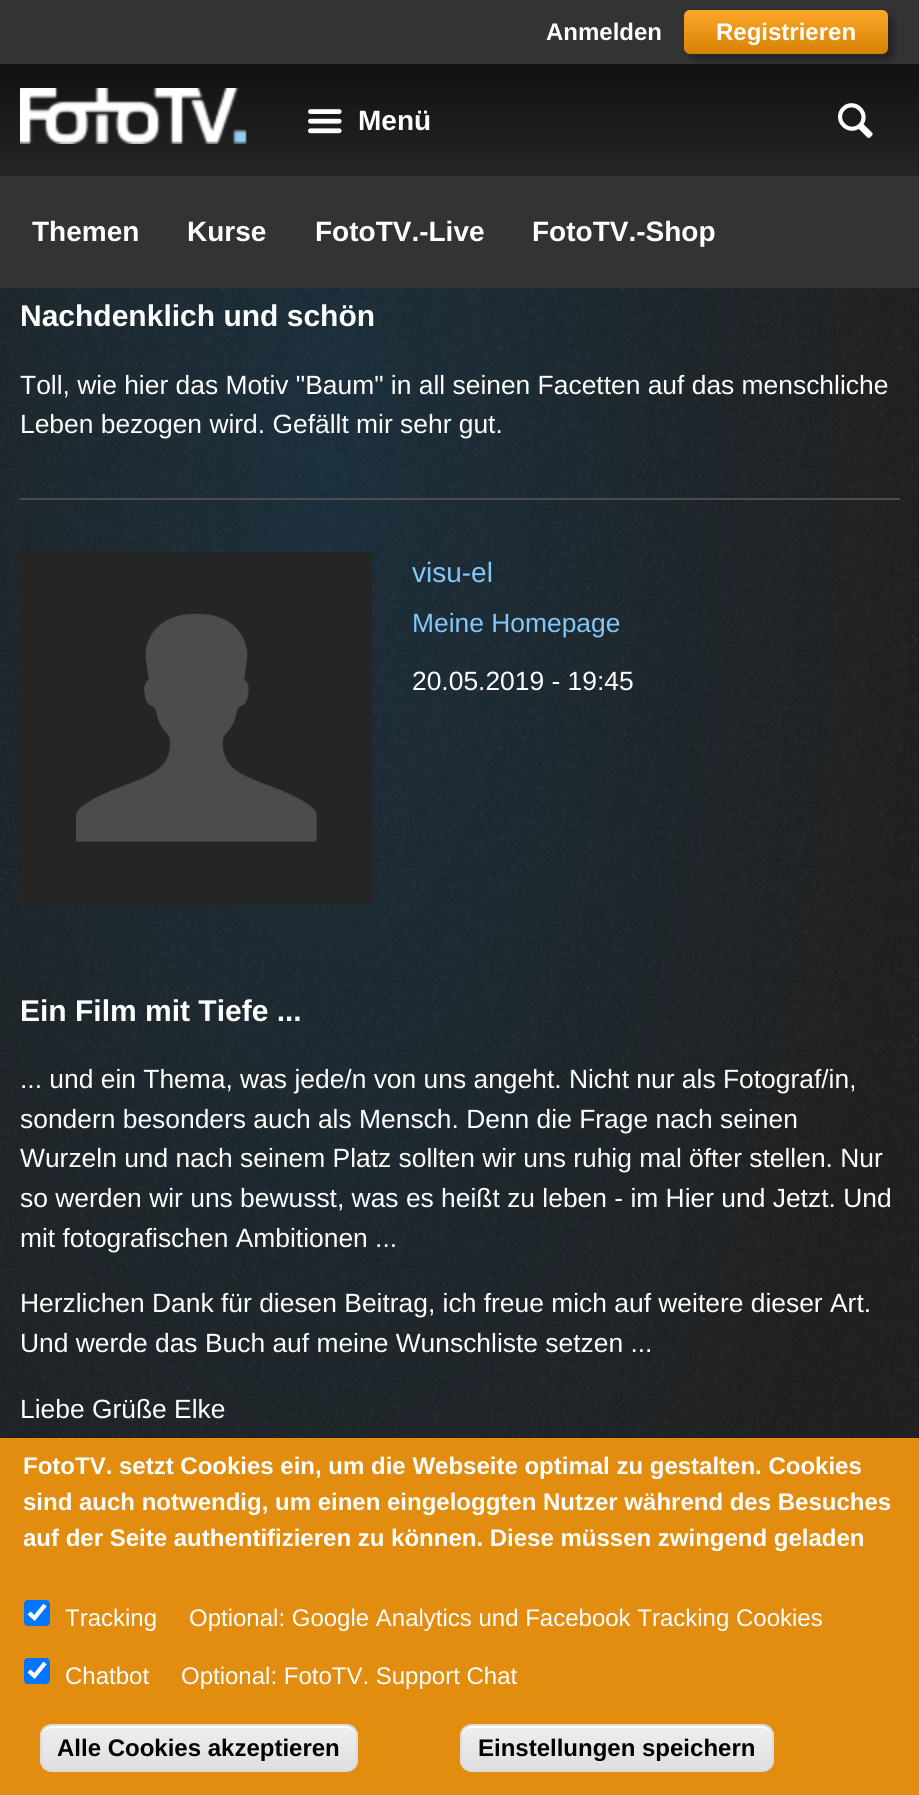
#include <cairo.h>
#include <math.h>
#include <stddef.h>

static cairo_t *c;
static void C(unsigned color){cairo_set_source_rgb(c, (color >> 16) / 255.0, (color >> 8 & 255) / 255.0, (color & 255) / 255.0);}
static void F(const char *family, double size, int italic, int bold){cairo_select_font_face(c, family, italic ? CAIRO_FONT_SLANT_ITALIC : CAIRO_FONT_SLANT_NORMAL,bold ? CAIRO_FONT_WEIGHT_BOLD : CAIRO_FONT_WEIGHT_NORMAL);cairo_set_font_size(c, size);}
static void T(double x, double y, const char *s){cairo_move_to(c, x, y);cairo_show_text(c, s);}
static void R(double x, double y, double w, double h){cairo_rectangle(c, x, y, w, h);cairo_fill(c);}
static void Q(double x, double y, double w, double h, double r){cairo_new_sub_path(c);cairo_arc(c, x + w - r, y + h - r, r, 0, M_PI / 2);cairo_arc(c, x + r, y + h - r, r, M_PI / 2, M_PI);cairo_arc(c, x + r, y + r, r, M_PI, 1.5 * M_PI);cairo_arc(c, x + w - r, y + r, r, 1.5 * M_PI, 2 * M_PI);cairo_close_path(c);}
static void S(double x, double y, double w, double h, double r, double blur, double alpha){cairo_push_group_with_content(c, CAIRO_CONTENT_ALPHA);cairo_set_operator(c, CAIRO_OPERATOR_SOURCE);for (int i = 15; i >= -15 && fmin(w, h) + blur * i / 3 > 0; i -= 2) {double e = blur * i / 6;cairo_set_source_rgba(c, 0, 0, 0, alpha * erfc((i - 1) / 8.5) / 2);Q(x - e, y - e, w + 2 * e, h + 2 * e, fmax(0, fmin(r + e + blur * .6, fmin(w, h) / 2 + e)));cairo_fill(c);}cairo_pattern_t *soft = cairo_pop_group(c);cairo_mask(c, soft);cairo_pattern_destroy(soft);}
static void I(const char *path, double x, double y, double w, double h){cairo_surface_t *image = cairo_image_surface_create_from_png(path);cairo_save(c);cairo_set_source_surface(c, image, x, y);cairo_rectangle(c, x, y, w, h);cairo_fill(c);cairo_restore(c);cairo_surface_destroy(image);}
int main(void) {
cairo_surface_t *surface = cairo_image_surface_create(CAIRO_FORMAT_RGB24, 919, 1795);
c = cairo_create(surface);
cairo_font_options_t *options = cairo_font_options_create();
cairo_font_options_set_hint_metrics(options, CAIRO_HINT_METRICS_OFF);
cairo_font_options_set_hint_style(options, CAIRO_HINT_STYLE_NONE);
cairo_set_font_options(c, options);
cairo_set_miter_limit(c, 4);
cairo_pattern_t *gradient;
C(0xffffff);
cairo_paint(c);
C(0x333333);
R(0,0,919,64);
gradient = cairo_pattern_create_linear(460,64,460,176);
cairo_pattern_add_color_stop_rgba(gradient,0,0.067,0.067,0.067,1);
cairo_pattern_add_color_stop_rgba(gradient,1,0.145,0.145,0.145,1);
cairo_set_source(c,gradient);
cairo_pattern_destroy(gradient);
R(0,64,919,112);
F("Liberation Sans",24,0,1);
C(0xffffff);
T(546,40,"Anmelden");
I("1.png",308,109,34,25);
F("Liberation Sans",28,0,1);
T(358,130,"Menü");
C(0x000000);
S(690,16,204,44,6,3,.3);
gradient = cairo_pattern_create_linear(786,10,786,54);
cairo_pattern_add_color_stop_rgba(gradient,0,0.996,0.659,0.169,1);
cairo_pattern_add_color_stop_rgba(gradient,1,0.839,0.506,0.016,1);
cairo_set_source(c,gradient);
cairo_pattern_destroy(gradient);
Q(684,10,204,44,6);
cairo_fill(c);
F("Liberation Sans",24,0,1);
C(0xffffff);
T(716,40,"Registrieren");
I("2.png",20,88,227,56);
I("3.png",838,103,35,35);
C(0x333333);
R(0,176,919,112);
F("Liberation Sans",28,0,1);
C(0xffffff);
T(32,241,"Themen");
T(187,241,"Kurse");
T(315,241,"FotoTV.-Live");
T(532,241,"FotoTV.-Shop");
gradient = cairo_pattern_create_radial(0,0,0,0,0,1);
cairo_pattern_set_matrix(gradient, &(cairo_matrix_t){1.0 / 601, 0, 0, 1.0 / 1505, -1.0 * 327 / 601, -1.0 * 447 / 1505});
cairo_pattern_add_color_stop_rgba(gradient,0,0.106,0.184,0.235,1);
cairo_pattern_add_color_stop_rgba(gradient,1,0.122,0.122,0.122,1);
cairo_set_source(c,gradient);
cairo_pattern_destroy(gradient);
R(0,288,919,1150);
I("4.png",0,288,919,1150);
C(0x4d4b4c);
R(20,498,880,2);
F("Liberation Sans",30,0,1);
C(0xffffff);
T(20,326,"Nachdenklich und schön");
F("Liberation Sans",26.4,0,0);
T(20,394,"Toll, wie hier das Motiv \"Baum\" in all seinen Facetten auf das menschliche");
T(20,433,"Leben bezogen wird. Gefällt mir sehr gut.");
I("5.png",20,552,352,352);
F("Liberation Sans",28,0,0);
C(0x83c8f8);
T(412,582,"visu-el");
F("Liberation Sans",26.4,0,0);
T(412,632,"Meine Homepage");
C(0xffffff);
T(412,690,"20.05.2019 - 19:45");
F("Liberation Sans",30,0,1);
T(20,1021,"Ein Film mit Tiefe ...");
F("Liberation Sans",26.4,0,0);
T(20,1088,"... und ein Thema, was jede/n von uns angeht. Nicht nur als Fotograf/in,");
T(20,1128,"sondern besonders auch als Mensch. Denn die Frage nach seinen");
T(20,1167,"Wurzeln und nach seinem Platz sollten wir uns ruhig mal öfter stellen. Nur");
T(20,1207,"so werden wir uns bewusst, was es heißt zu leben - im Hier und Jetzt. Und");
T(20,1247,"mit fotografischen Ambitionen ...");
T(20,1312,"Herzlichen Dank für diesen Beitrag, ich freue mich auf weitere dieser Art.");
T(20,1352,"Und werde das Buch auf meine Wunschliste setzen ...");
T(20,1418,"Liebe Grüße Elke");
C(0xe28d10);
R(0,1438,919,357);
F("Liberation Sans",24,0,1);
C(0xffffff);
T(23,1474,"FotoTV. setzt Cookies ein, um die Webseite optimal zu gestalten. Cookies");
T(23,1510,"sind auch notwendig, um einen eingeloggten Nutzer während des Besuches");
cairo_save(c);
cairo_rectangle(c,24,1448,874,128);
cairo_clip(c);
T(23,1546,"auf der Seite authentifizieren zu können. Diese müssen zwingend geladen");
cairo_restore(c);
C(0x0075ff);
Q(24,1600,26,26,4);
cairo_fill(c);
cairo_new_path(c);
cairo_move_to(c,29,1613);
cairo_line_to(c,34.5,1618);
cairo_line_to(c,45,1605);
C(0xffffff);
cairo_set_line_width(c,4.2);
cairo_stroke(c);
F("Liberation Sans",24,0,0);
T(65,1626,"Tracking");
T(189,1626,"Optional: Google Analytics und Facebook Tracking Cookies");
C(0x0075ff);
Q(24,1658,26,26,4);
cairo_fill(c);
cairo_new_path(c);
cairo_move_to(c,29,1671);
cairo_line_to(c,34.5,1676);
cairo_line_to(c,45,1663);
C(0xffffff);
cairo_stroke(c);
T(65,1684,"Chatbot");
T(181,1684,"Optional: FotoTV. Support Chat");
cairo_save(c);
Q(460,1724,314,48,12);
cairo_clip(c);
gradient = cairo_pattern_create_linear(617,1726,617,1770);
cairo_pattern_add_color_stop_rgba(gradient,.05,0.929,0.929,0.929,1);
cairo_pattern_add_color_stop_rgba(gradient,1,0.875,0.875,0.875,1);
cairo_set_source(c,gradient);
cairo_pattern_destroy(gradient);
R(460,1726,314,44);
cairo_restore(c);
cairo_new_path(c);
cairo_move_to(c,472,1728);
cairo_line_to(c,762,1728);
cairo_curve_to(c,768,1728,772,1732,772,1738);
cairo_line_to(c,772,1736);
cairo_curve_to(c,772,1730,768,1726,762,1726);
cairo_line_to(c,472,1726);
cairo_curve_to(c,466,1726,462,1730,462,1736);
cairo_line_to(c,462,1738);
cairo_curve_to(c,462,1732,466,1728,472,1728);
cairo_close_path(c);
cairo_fill(c);
Q(461,1725,312,46,11);
C(0xdcdcdc);
cairo_set_line_width(c,2);
cairo_stroke(c);
F("Liberation Sans",24,0,1);
C(0x000000);
T(478,1756,"Einstellungen speichern");
cairo_save(c);
Q(40,1724,318,48,12);
cairo_clip(c);
gradient = cairo_pattern_create_linear(199,1726,199,1770);
cairo_pattern_add_color_stop_rgba(gradient,.05,0.929,0.929,0.929,1);
cairo_pattern_add_color_stop_rgba(gradient,1,0.875,0.875,0.875,1);
cairo_set_source(c,gradient);
cairo_pattern_destroy(gradient);
R(40,1726,318,44);
cairo_restore(c);
C(0xffffff);
cairo_new_path(c);
cairo_move_to(c,52,1728);
cairo_line_to(c,346,1728);
cairo_curve_to(c,352,1728,356,1732,356,1738);
cairo_line_to(c,356,1736);
cairo_curve_to(c,356,1730,352,1726,346,1726);
cairo_line_to(c,52,1726);
cairo_curve_to(c,46,1726,42,1730,42,1736);
cairo_line_to(c,42,1738);
cairo_curve_to(c,42,1732,46,1728,52,1728);
cairo_close_path(c);
cairo_fill(c);
Q(41,1725,316,46,11);
C(0xdcdcdc);
cairo_stroke(c);
C(0x000000);
T(57,1756,"Alle Cookies akzeptieren");
cairo_surface_write_to_png(surface, "o.png");
cairo_font_options_destroy(options);
cairo_destroy(c);
cairo_surface_destroy(surface);
return 0;
}
